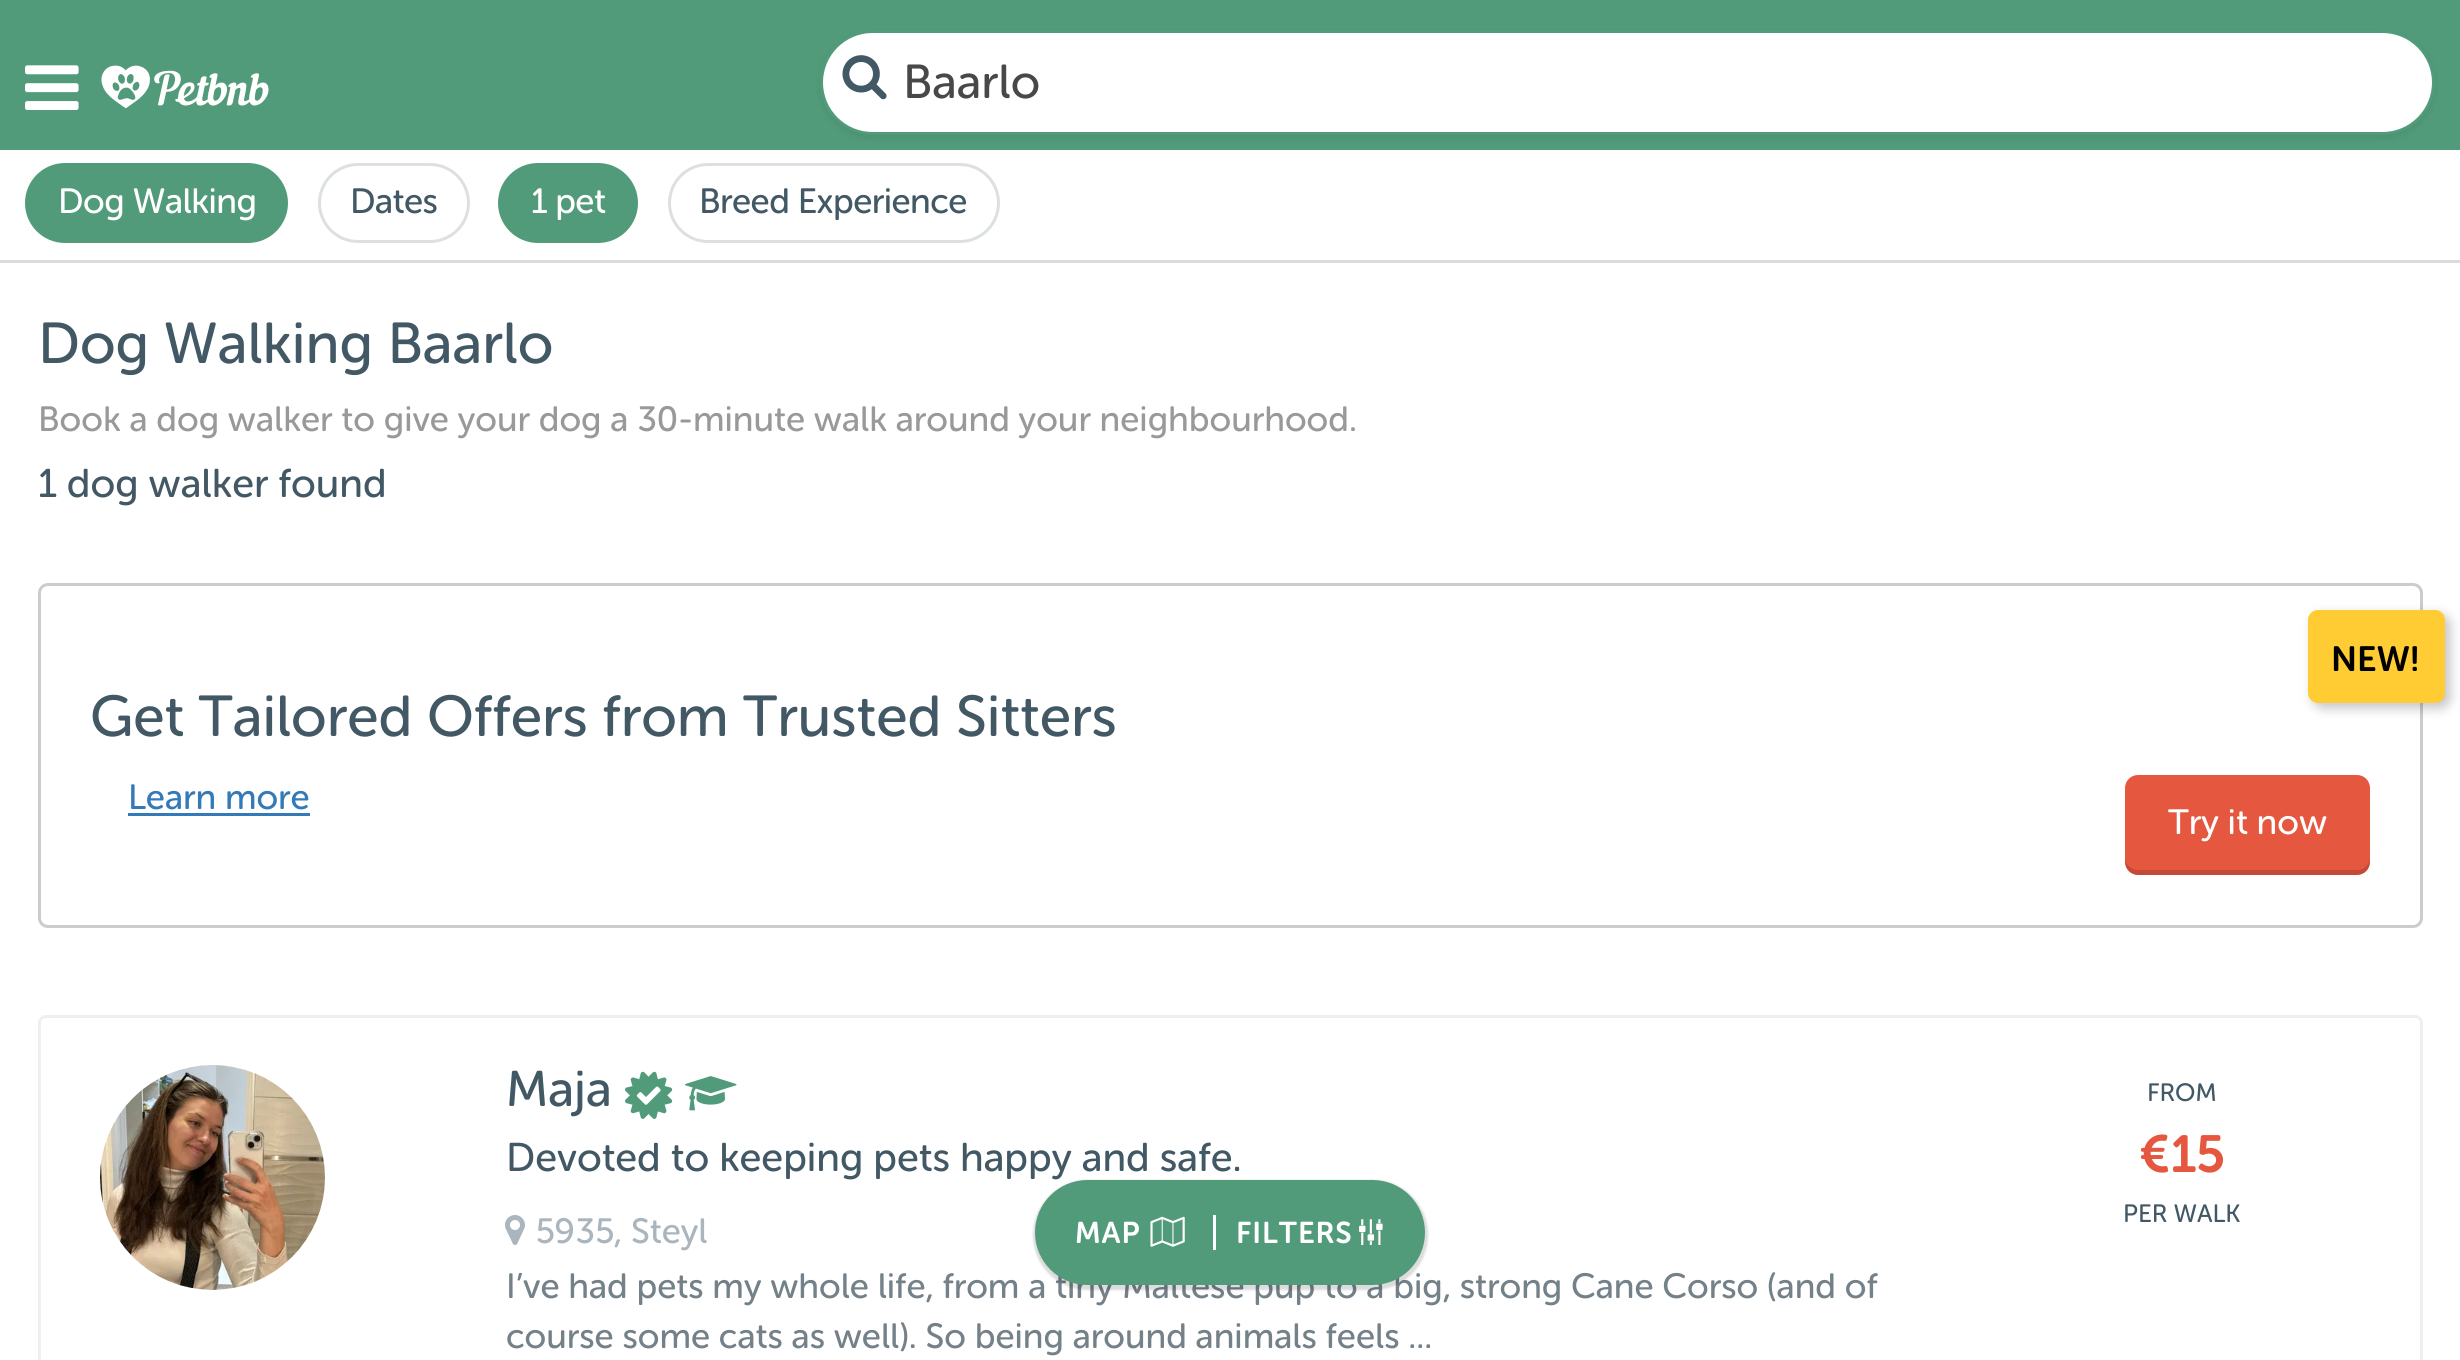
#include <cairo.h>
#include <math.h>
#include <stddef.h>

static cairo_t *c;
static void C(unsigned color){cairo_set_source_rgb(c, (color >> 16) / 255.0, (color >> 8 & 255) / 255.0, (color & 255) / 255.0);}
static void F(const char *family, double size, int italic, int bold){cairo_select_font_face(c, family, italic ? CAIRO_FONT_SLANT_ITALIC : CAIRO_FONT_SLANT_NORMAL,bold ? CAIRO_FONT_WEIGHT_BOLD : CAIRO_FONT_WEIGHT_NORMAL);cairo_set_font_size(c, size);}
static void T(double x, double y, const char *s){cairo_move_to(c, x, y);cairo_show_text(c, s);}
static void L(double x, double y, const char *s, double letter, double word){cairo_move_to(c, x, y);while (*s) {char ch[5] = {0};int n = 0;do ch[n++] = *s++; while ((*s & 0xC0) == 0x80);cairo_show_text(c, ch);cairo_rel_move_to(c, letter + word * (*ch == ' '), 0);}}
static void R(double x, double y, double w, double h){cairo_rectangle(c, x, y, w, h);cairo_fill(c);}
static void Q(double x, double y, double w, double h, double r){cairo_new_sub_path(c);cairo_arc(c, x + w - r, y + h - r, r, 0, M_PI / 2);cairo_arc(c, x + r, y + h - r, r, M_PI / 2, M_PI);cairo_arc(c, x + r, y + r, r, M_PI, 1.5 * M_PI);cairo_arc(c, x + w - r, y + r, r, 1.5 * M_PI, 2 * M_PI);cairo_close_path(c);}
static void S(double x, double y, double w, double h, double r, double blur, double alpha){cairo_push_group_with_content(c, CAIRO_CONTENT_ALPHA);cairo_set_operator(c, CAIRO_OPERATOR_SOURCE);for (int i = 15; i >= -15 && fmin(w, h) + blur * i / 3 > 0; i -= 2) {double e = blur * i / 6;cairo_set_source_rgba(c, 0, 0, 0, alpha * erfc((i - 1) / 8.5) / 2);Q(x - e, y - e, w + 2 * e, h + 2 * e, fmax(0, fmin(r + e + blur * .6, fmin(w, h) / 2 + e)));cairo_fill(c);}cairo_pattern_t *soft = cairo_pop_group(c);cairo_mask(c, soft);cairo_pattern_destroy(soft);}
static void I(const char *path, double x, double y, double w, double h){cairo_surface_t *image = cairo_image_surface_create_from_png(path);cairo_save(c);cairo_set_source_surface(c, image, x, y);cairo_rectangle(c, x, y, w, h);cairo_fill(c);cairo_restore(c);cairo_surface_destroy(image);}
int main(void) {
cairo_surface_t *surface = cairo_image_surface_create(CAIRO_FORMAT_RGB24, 2460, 1360);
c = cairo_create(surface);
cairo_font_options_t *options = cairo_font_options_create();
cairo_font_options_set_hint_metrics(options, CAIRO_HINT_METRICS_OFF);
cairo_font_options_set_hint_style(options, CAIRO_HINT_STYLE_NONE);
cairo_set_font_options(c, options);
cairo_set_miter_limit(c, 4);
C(0xffffff);
cairo_paint(c);
C(0x519b7a);
R(0,0,2460,150);
I("1.png",25,65,54,45);
I("2.png",101,65,168,44);
C(0x000000);
S(820,33,1615,105,52.5,4,.08);
C(0xffffff);
Q(821.5,31.5,1612,102,51);
cairo_fill_preserve(c);
C(0x519b7a);
cairo_set_line_width(c,3);
cairo_stroke(c);
I("3.png",842,55,45,45);
F("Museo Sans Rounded",47.5,0,0);
C(0x484848);
T(903,98,"Baarlo");
C(0xdbdbdb);
R(0,260,2460,3);
C(0x519b7a);
Q(26.5,164.5,260,77,38.5);
cairo_fill_preserve(c);
cairo_stroke(c);
F("Museo Sans Rounded",35,0,0);
C(0xffffff);
L(58,213,"Dog Walking",-.5,0);
Q(319.5,164.5,149,77,38.5);
C(0xdce0e0);
cairo_stroke(c);
C(0x425864);
L(350,213,"Dates",-.5,0);
C(0x519b7a);
Q(499.5,164.5,137,77,38.5);
cairo_fill_preserve(c);
cairo_stroke(c);
C(0xffffff);
L(531,213,"1 pet",-.5,0);
Q(669.5,164.5,329,77,38.5);
C(0xdce0e0);
cairo_stroke(c);
C(0x425864);
L(699,213,"Breed Experience",-.5,0);
F("Museo Sans Rounded",57.5,0,0);
T(38,363,"Dog Walking Baarlo");
F("Museo Sans Rounded",35,0,0);
C(0x999999);
T(38,431,"Book a dog walker to give your dog a 30-minute walk around your neighbourhood.");
F("Museo Sans Rounded",40,0,0);
C(0x425864);
T(38,497,"1 dog walker found");
Q(39.5,584.5,2382,342,8.5);
C(0xcccccc);
cairo_stroke(c);
C(0x000000);
S(2313,615,137,93,10,6,.24);
C(0xffcc33);
Q(2308,610,137,93,10);
cairo_fill(c);
F("Museo Sans Rounded SemiBold",35,0,0);
C(0x000000);
T(2331,671,"NEW!");
F("Museo Sans Rounded",57.5,0,0);
C(0x425864);
T(90,736,"Get Tailored Offers from Trusted Sitters");
F("Museo Sans Rounded",35,0,0);
C(0x337ab7);
T(128,809,"Learn more");
R(128,813,182,3);
C(0xe5573f);
Q(2125,775,245,100,13);
cairo_fill(c);
cairo_set_source_rgba(c,0,0,0,0.15);
cairo_new_path(c);
cairo_move_to(c,2125,858);
cairo_line_to(c,2125,862);
cairo_curve_to(c,2125,869,2131,875,2138,875);
cairo_line_to(c,2357,875);
cairo_curve_to(c,2364,875,2370,869,2370,862);
cairo_line_to(c,2370,858);
cairo_curve_to(c,2370,864,2364,870,2358,870);
cairo_line_to(c,2138,870);
cairo_curve_to(c,2131,870,2125,864,2125,858);
cairo_close_path(c);
cairo_fill(c);
C(0xffffff);
T(2168,834,"Try it now");
Q(39.5,1016.5,2382,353,6.5);
C(0xefefef);
cairo_stroke(c);
I("4.png",100,1065,225,225);
F("Museo Sans Rounded",50,0,0);
C(0x425864);
T(506,1106,"Maja");
I("5.png",625,1071,48,48);
I("6.png",636,1086,25,19);
I("7.png",685,1076,52,35);
F("Museo Sans Rounded",40,0,0);
T(506,1171,"Devoted to keeping pets happy and safe.");
I("8.png",505,1215,20,30);
F("Museo Sans Rounded",35,0,0);
C(0xabb5be);
T(535,1243,"5935, Steyl");
C(0x748189);
T(506,1298,"I’ve had pets my whole life, from a tiny Maltese pup to a big, strong Cane Corso (and of");
T(506,1348,"course some cats as well). So being around animals feels ...");
F("Museo Sans Rounded",25,0,0);
C(0x425864);
T(2147,1101,"FROM");
F("Museo Sans Rounded SemiBold",52,0,0);
C(0xe5573f);
T(2139,1172,"€15");
F("Museo Sans Rounded",25,0,0);
C(0x425864);
T(2123,1222,"PER WALK");
C(0x000000);
S(1033,1180,395,110,55,1,.14);
C(0x519b7a);
Q(1035,1180,390,105,52.5);
cairo_fill(c);
F("Museo Sans Rounded SemiBold",30,0,0);
C(0xffffff);
L(1075,1243,"MAP",1,0);
I("9.png",1150,1216,35,31);
R(1213,1215,3,35);
L(1236,1243,"FILTERS",1,0);
I("10.png",1359,1219,24,26);
cairo_surface_write_to_png(surface, "o.png");
cairo_font_options_destroy(options);
cairo_destroy(c);
cairo_surface_destroy(surface);
return 0;
}
